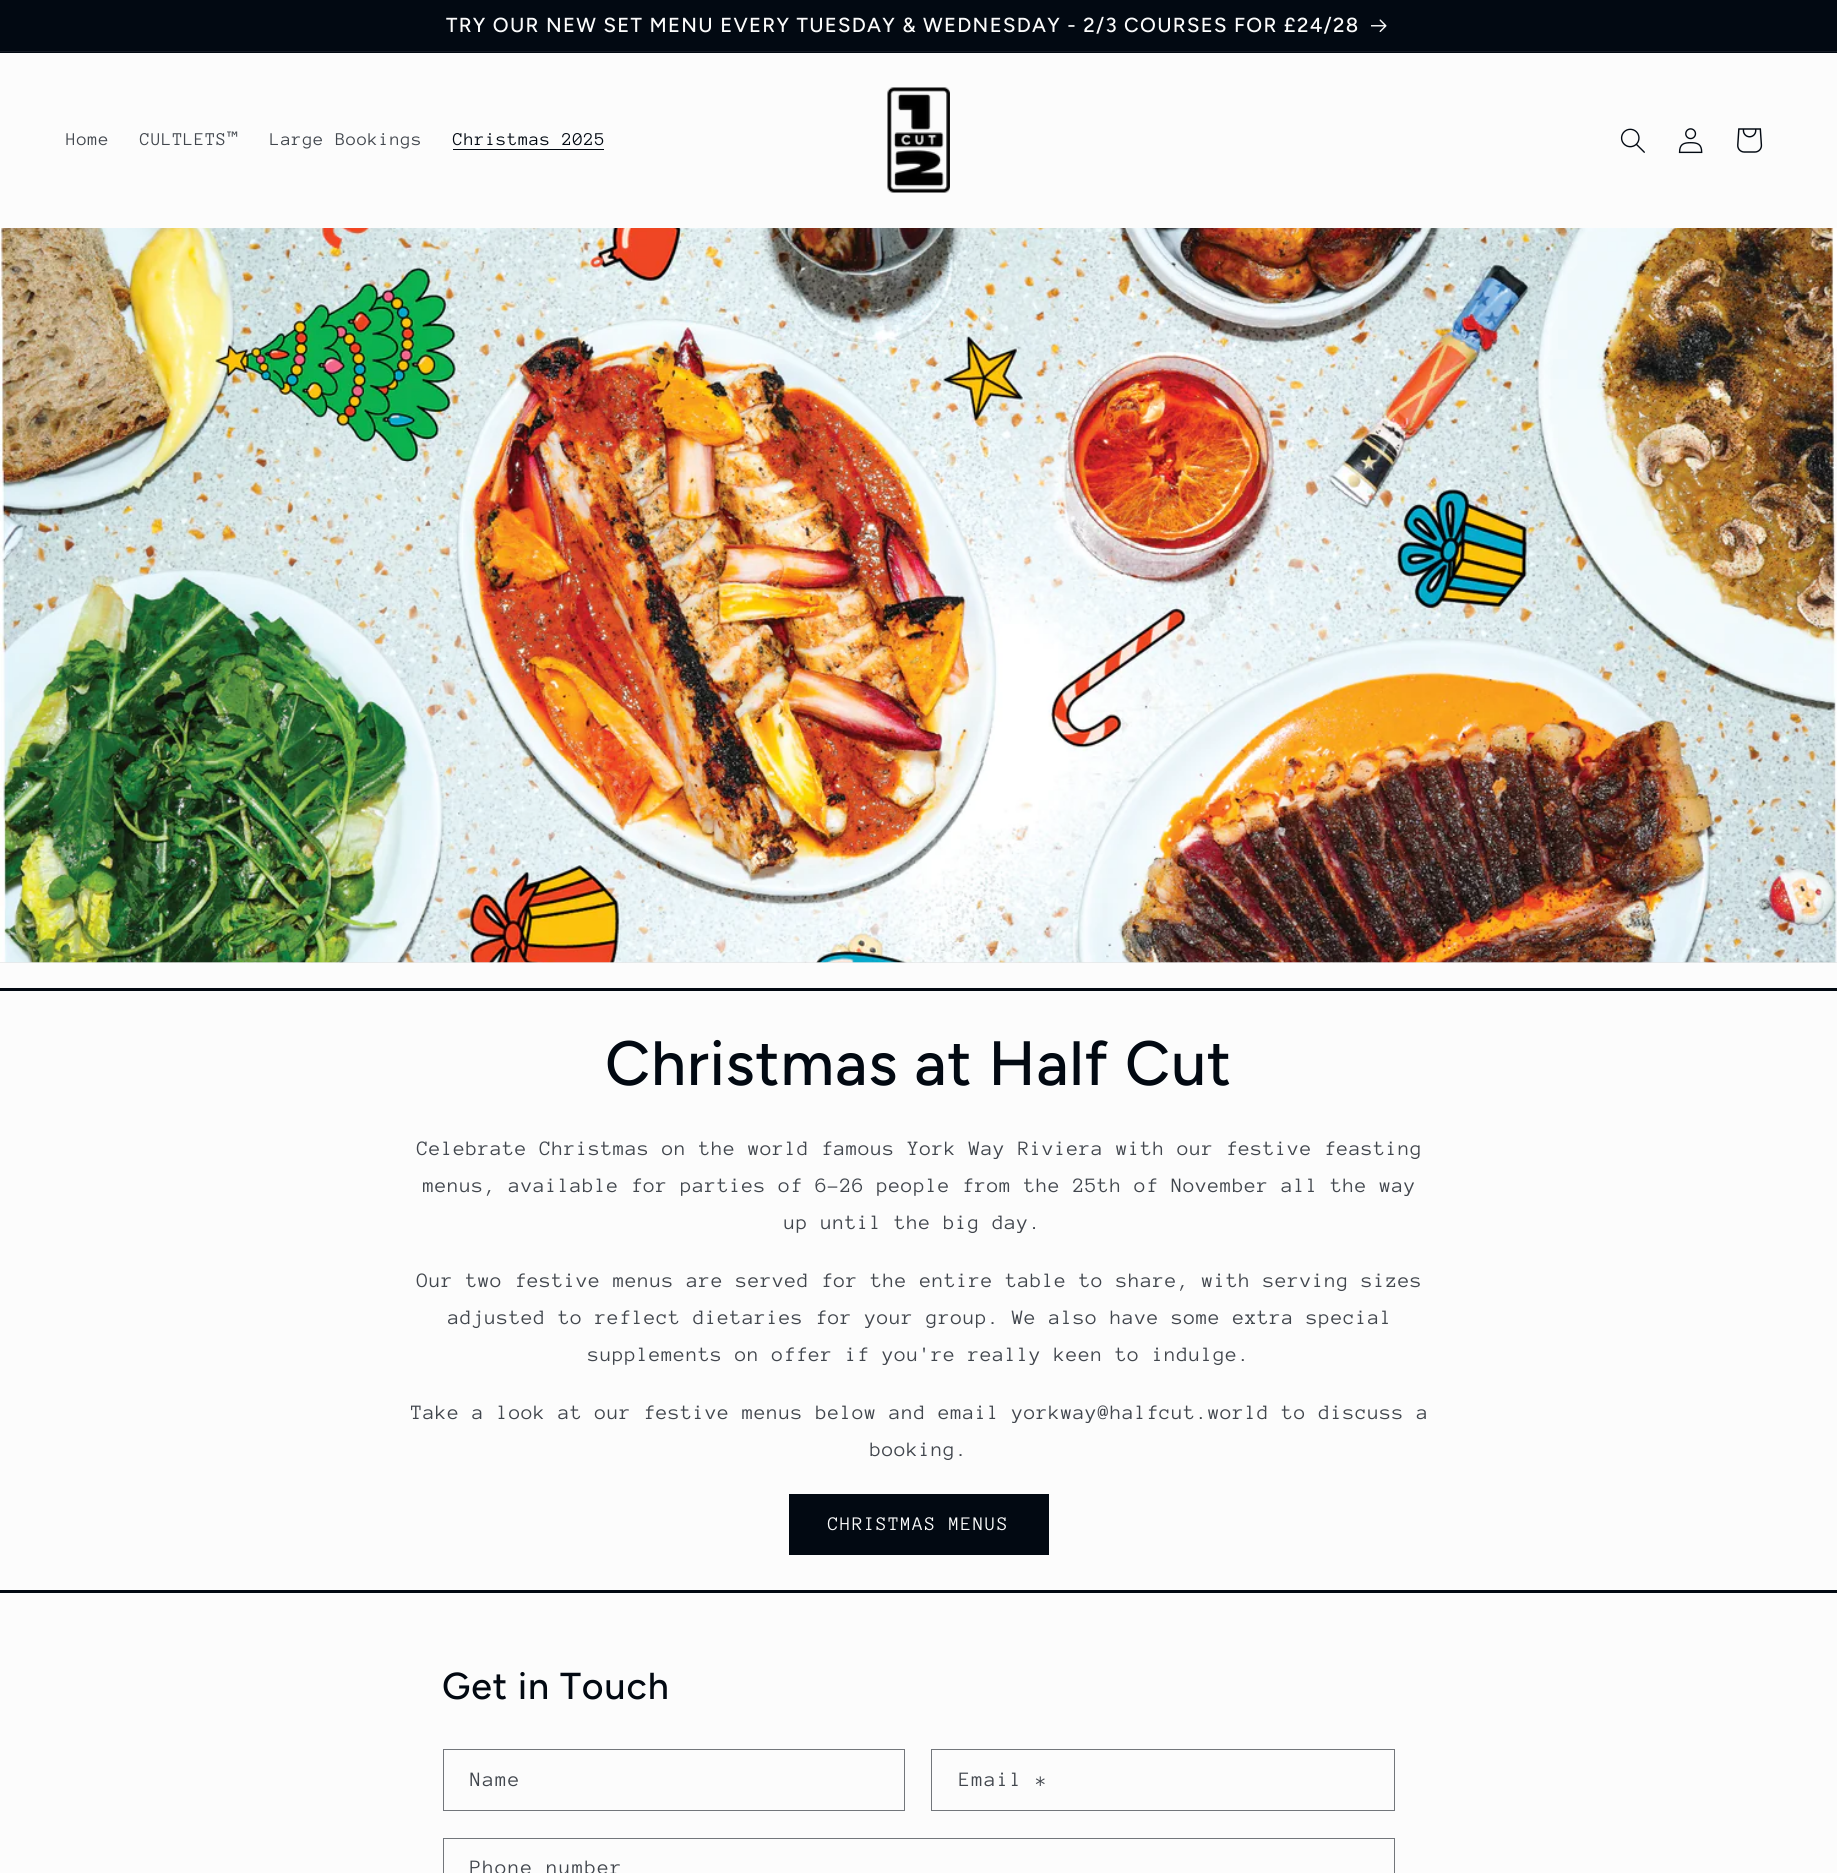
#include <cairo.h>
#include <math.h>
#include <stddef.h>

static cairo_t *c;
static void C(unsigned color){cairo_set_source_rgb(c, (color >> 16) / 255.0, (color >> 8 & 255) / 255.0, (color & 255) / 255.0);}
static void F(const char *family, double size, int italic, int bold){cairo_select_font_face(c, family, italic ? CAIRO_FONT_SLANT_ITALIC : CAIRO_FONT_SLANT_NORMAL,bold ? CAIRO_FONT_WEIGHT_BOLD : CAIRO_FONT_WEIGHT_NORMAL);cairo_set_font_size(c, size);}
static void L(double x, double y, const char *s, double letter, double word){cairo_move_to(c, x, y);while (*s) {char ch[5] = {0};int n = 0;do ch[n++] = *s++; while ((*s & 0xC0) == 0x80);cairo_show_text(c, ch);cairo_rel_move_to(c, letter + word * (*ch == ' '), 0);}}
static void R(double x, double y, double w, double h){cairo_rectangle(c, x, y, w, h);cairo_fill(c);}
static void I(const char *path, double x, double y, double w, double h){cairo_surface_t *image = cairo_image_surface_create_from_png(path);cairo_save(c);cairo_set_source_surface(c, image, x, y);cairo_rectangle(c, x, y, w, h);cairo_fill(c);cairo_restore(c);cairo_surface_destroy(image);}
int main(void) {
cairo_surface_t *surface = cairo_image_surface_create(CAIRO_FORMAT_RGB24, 1837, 1873);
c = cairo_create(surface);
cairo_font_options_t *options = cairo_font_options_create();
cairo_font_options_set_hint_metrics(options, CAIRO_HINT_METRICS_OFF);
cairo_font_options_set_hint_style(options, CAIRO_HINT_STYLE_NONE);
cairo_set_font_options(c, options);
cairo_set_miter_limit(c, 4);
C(0xfcfcfc);
cairo_paint(c);
C(0x020912);
R(0,0,1837,53);
C(0x161c25);
R(0,51,1837,1);
F("Figtree Medium",20.3,0,0);
C(0xfcfcfc);
L(446,32,"TRY OUR NEW SET MENU EVERY TUESDAY & WEDNESDAY - 2/3 COURSES FOR £24/28",1.3,0);
I("1.png",1371,19,16,14);
F("Anonymous Pro",18.5,0,0);
C(0x41464d);
L(66,145,"Home",.8,0);
L(140,145,"CULTLETS",.8,0);
F("DejaVu Sans Mono",18.5,0,0);
L(227,145,"™",.8,0);
F("Anonymous Pro",18.5,0,0);
L(270,145,"Large Bookings",.8,0);
C(0x020912);
L(453,145,"Christmas 2025",.8,0);
R(453,149,151,1);
I("2.png",887,87,63,106);
I("3.png",1620,128,25,25);
I("4.png",1678,128,25,26);
I("5.png",1737,128,26,25);
C(0xe6e7e7);
R(0,962,1837,1);
I("6.png",0,228,1837,735);
C(0x020912);
R(0,988,1837,3);
R(0,1590,1837,3);
F("Figtree Medium",62.5,0,0);
L(605,1085,"Christmas at Half Cut",.9,0);
F("Anonymous Pro",21,0,0);
C(0x41464d);
L(417,1155,"Celebrate Christmas on the world famous York Way Riviera with our festive feasting",.8,0);
L(423,1192,"menus, available for parties of 6-26 people from the 25th of November all the way",.8,0);
L(784,1229,"up until the big day.",.8,0);
L(417,1287,"Our two festive menus are served for the entire table to share, with serving sizes",.8,0);
L(448,1324,"adjusted to reflect dietaries for your group. We also have some extra special",.8,0);
L(588,1361,"supplements on offer if you're really keen to indulge.",.8,0);
L(411,1419,"Take a look at our festive menus below and email yorkway@halfcut.world to discuss a",.8,0);
L(870,1456,"booking.",.8,0);
C(0x020912);
R(789,1494,260,61);
F("Anonymous Pro",19.75,0,0);
C(0xfcfcfc);
L(828,1530,"CHRISTMAS MENUS",1.3,0);
F("Figtree Medium",37.5,0,0);
C(0x020912);
L(442,1699,"Get in Touch",.9,0);
cairo_rectangle(c,443.5,1749.5,461,61);
C(0x72767b);
cairo_set_line_width(c,1);
cairo_stroke(c);
F("Anonymous Pro",21,0,0);
C(0x41464d);
L(470,1786,"Name",1.3,0);
cairo_rectangle(c,931.5,1749.5,463,61);
C(0x72767b);
cairo_stroke(c);
C(0x41464d);
L(959,1786,"Email *",1.3,0);
cairo_rectangle(c,443.5,1838.5,951,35);
C(0x72767b);
cairo_stroke(c);
C(0x41464d);
L(470,1874,"Phone number",1.3,0);
cairo_surface_write_to_png(surface, "o.png");
cairo_font_options_destroy(options);
cairo_destroy(c);
cairo_surface_destroy(surface);
return 0;
}
